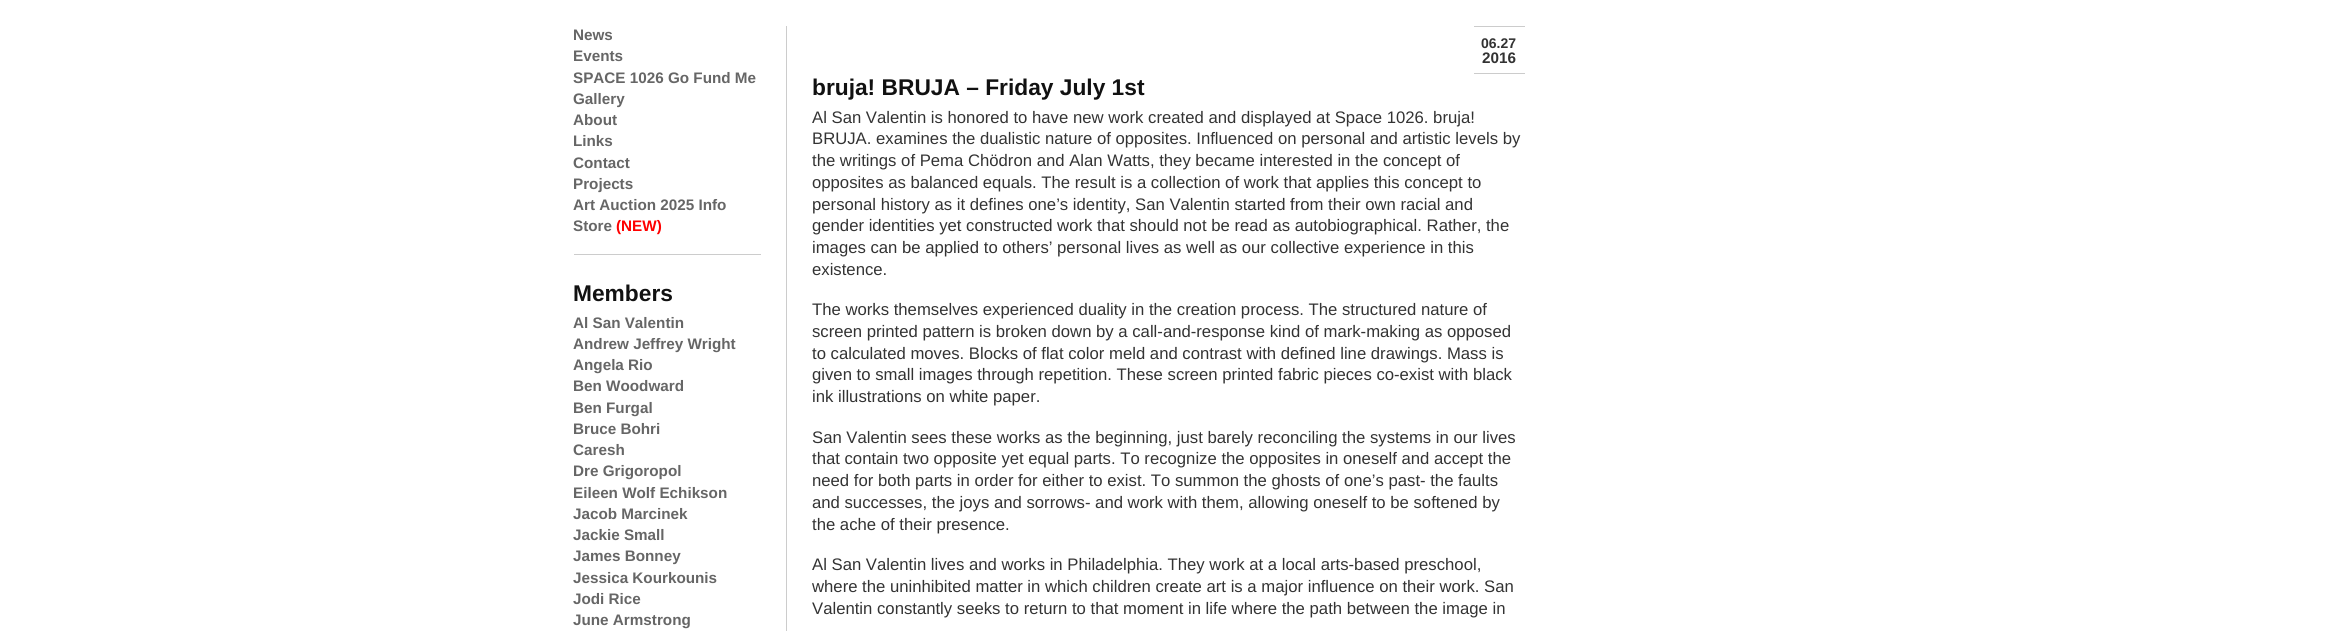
#include <cairo.h>
#include <math.h>
#include <stddef.h>

static cairo_t *c;
static void C(unsigned color){cairo_set_source_rgb(c, (color >> 16) / 255.0, (color >> 8 & 255) / 255.0, (color & 255) / 255.0);}
static void F(const char *family, double size, int italic, int bold){cairo_select_font_face(c, family, italic ? CAIRO_FONT_SLANT_ITALIC : CAIRO_FONT_SLANT_NORMAL,bold ? CAIRO_FONT_WEIGHT_BOLD : CAIRO_FONT_WEIGHT_NORMAL);cairo_set_font_size(c, size);}
static void T(double x, double y, const char *s){cairo_move_to(c, x, y);cairo_show_text(c, s);}
static void R(double x, double y, double w, double h){cairo_rectangle(c, x, y, w, h);cairo_fill(c);}
int main(void) {
cairo_surface_t *surface = cairo_image_surface_create(CAIRO_FORMAT_RGB24, 2346, 631);
c = cairo_create(surface);
cairo_font_options_t *options = cairo_font_options_create();
cairo_font_options_set_hint_metrics(options, CAIRO_HINT_METRICS_OFF);
cairo_font_options_set_hint_style(options, CAIRO_HINT_STYLE_NONE);
cairo_set_font_options(c, options);
cairo_set_miter_limit(c, 4);
C(0xffffff);
cairo_paint(c);
C(0xcccccc);
R(574,254,187,1);
F("Liberation Sans",15.25,0,1);
C(0x666666);
T(573,40,"News");
T(573,61,"Events");
T(573,83,"SPACE 1026 Go Fund Me");
T(573,104,"Gallery");
T(573,125,"About");
T(573,146,"Links");
T(573,168,"Contact");
T(573,189,"Projects");
T(573,210,"Art Auction 2025 Info");
T(573,231,"Store");
C(0xff0000);
T(616,231,"(NEW)");
F("Liberation Sans",22.75,0,1);
C(0x111111);
T(573,301,"Members");
F("Liberation Sans",15.25,0,1);
C(0x666666);
T(573,328,"Al San Valentin");
T(573,349,"Andrew Jeffrey Wright");
T(573,370,"Angela Rio");
T(573,391,"Ben Woodward");
T(573,413,"Ben Furgal");
T(573,434,"Bruce Bohri");
T(573,455,"Caresh");
T(573,476,"Dre Grigoropol");
T(573,498,"Eileen Wolf Echikson");
T(573,519,"Jacob Marcinek");
T(573,540,"Jackie Small");
T(573,561,"James Bonney");
T(573,583,"Jessica Kourkounis");
T(573,604,"Jodi Rice");
T(573,625,"June Armstrong");
C(0xcccccc);
R(786,26,1,605);
R(1474,26,51,1);
R(1474,73,51,1);
F("Liberation Sans",14,0,1);
C(0x333333);
T(1481,48,"06.27");
F("Liberation Sans",15.25,0,1);
T(1482,63,"2016");
F("Liberation Sans",22.75,0,1);
C(0x111111);
T(812,95,"bruja! BRUJA – Friday July 1st");
F("Liberation Sans",16.7,0,0);
C(0x333333);
T(812,123,"Al San Valentin is honored to have new work created and displayed at Space 1026. bruja!");
T(812,144,"BRUJA. examines the dualistic nature of opposites. Influenced on personal and artistic levels by");
T(812,166,"the writings of Pema Chödron and Alan Watts, they became interested in the concept of");
T(812,188,"opposites as balanced equals. The result is a collection of work that applies this concept to");
T(812,210,"personal history as it defines one’s identity, San Valentin started from their own racial and");
T(812,231,"gender identities yet constructed work that should not be read as autobiographical. Rather, the");
T(812,253,"images can be applied to others’ personal lives as well as our collective experience in this");
T(812,275,"existence.");
T(812,315,"The works themselves experienced duality in the creation process. The structured nature of");
T(812,337,"screen printed pattern is broken down by a call-and-response kind of mark-making as opposed");
T(812,359,"to calculated moves. Blocks of flat color meld and contrast with defined line drawings. Mass is");
T(812,380,"given to small images through repetition. These screen printed fabric pieces co-exist with black");
T(812,402,"ink illustrations on white paper.");
T(812,443,"San Valentin sees these works as the beginning, just barely reconciling the systems in our lives");
T(812,464,"that contain two opposite yet equal parts. To recognize the opposites in oneself and accept the");
T(812,486,"need for both parts in order for either to exist. To summon the ghosts of one’s past- the faults");
T(812,508,"and successes, the joys and sorrows- and work with them, allowing oneself to be softened by");
T(812,530,"the ache of their presence.");
T(812,570,"Al San Valentin lives and works in Philadelphia. They work at a local arts-based preschool,");
T(812,592,"where the uninhibited matter in which children create art is a major influence on their work. San");
T(812,614,"Valentin constantly seeks to return to that moment in life where the path between the image in");
cairo_surface_write_to_png(surface, "o.png");
cairo_font_options_destroy(options);
cairo_destroy(c);
cairo_surface_destroy(surface);
return 0;
}
